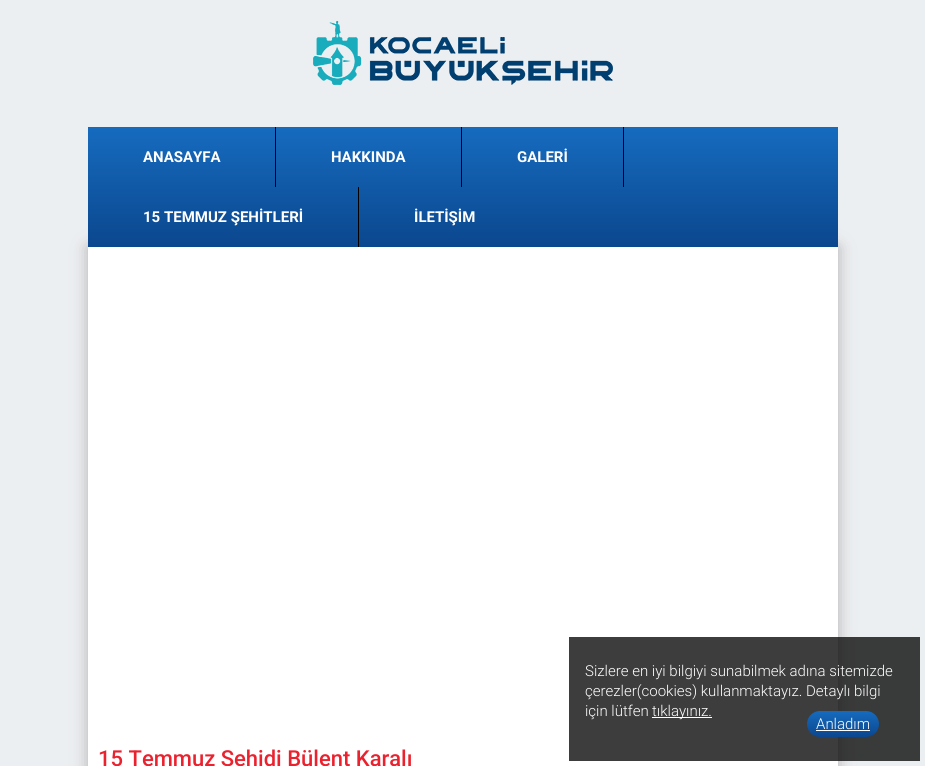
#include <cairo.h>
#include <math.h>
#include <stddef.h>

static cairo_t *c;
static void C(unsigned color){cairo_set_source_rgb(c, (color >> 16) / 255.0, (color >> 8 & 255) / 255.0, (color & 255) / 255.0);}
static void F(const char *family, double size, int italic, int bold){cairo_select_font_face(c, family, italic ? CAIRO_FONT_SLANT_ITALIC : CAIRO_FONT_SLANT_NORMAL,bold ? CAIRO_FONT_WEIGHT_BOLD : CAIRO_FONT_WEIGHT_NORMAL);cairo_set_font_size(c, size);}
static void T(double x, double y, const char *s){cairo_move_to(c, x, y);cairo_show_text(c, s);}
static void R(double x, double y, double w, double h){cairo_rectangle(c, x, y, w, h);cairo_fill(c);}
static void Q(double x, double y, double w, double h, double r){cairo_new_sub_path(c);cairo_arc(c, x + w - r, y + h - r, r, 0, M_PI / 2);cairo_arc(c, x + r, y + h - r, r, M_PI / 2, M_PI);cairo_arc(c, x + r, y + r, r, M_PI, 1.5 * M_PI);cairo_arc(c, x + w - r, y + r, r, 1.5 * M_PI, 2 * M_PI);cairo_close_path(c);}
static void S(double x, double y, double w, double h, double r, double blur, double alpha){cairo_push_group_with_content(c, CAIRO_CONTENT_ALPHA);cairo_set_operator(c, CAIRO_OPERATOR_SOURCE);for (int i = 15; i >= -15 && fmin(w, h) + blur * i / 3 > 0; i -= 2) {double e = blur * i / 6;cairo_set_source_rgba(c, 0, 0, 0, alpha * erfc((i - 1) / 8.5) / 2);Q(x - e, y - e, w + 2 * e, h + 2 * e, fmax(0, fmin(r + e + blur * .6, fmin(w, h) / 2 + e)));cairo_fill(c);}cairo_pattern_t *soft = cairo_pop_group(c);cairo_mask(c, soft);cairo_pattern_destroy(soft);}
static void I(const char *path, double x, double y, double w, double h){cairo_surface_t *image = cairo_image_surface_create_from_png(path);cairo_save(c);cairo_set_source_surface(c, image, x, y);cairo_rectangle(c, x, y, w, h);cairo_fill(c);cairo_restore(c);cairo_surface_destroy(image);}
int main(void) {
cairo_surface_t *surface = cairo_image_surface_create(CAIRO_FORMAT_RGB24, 925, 766);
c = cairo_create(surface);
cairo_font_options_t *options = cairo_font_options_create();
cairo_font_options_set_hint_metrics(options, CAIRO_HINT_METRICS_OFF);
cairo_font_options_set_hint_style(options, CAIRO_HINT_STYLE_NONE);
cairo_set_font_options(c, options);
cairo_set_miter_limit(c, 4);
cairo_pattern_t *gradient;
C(0xeceff1);
cairo_paint(c);
I("1.png",313,21,300,64);
C(0xb3afb3);
S(88,247,750,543,0,8,1);
gradient = cairo_pattern_create_linear(463,127,463,247);
cairo_pattern_add_color_stop_rgba(gradient,0,0.086,0.42,0.749,1);
cairo_pattern_add_color_stop_rgba(gradient,1,0.043,0.278,0.557,1);
cairo_set_source(c,gradient);
cairo_pattern_destroy(gradient);
R(88,127,750,120);
C(0x000000);
R(275,127,1,60);
F("Roboto",15,0,1);
C(0xffffff);
T(143,162,"ANASAYFA");
C(0x000000);
R(461,127,1,60);
C(0xffffff);
T(331,162,"HAKKINDA");
C(0x000000);
R(623,127,1,60);
C(0xffffff);
T(517,162,"GALERİ");
C(0x000000);
R(358,187,1,60);
C(0xffffff);
T(143,222,"15 TEMMUZ ŞEHİTLERİ");
T(414,222,"İLETİŞİM");
R(88,247,750,519);
cairo_set_source_rgba(c,0.051,0.051,0.051,0.8);
R(569,637,351,124);
F("Roboto Light",15,0,0);
C(0xffffff);
T(585,676,"Sizlere en iyi bilgiyi sunabilmek adına sitemizde");
T(585,696,"çerezler(cookies) kullanmaktayız. Detaylı bilgi");
T(585,716,"için lütfen");
R(652,717,60,1);
T(652,716,"tıklayınız.");
gradient = cairo_pattern_create_linear(843,711,843,737);
cairo_pattern_add_color_stop_rgba(gradient,0,0.086,0.42,0.749,1);
cairo_pattern_add_color_stop_rgba(gradient,1,0.043,0.278,0.557,1);
cairo_set_source(c,gradient);
cairo_pattern_destroy(gradient);
Q(807,711,72,26,13);
cairo_fill(c);
C(0xffffff);
T(816,729,"Anladım");
R(816,730,54,1);
F("Roboto Medium",22,0,0);
C(0xeb212e);
T(98,766,"15 Temmuz Şehidi Bülent Karalı");
cairo_surface_write_to_png(surface, "o.png");
cairo_font_options_destroy(options);
cairo_destroy(c);
cairo_surface_destroy(surface);
return 0;
}
